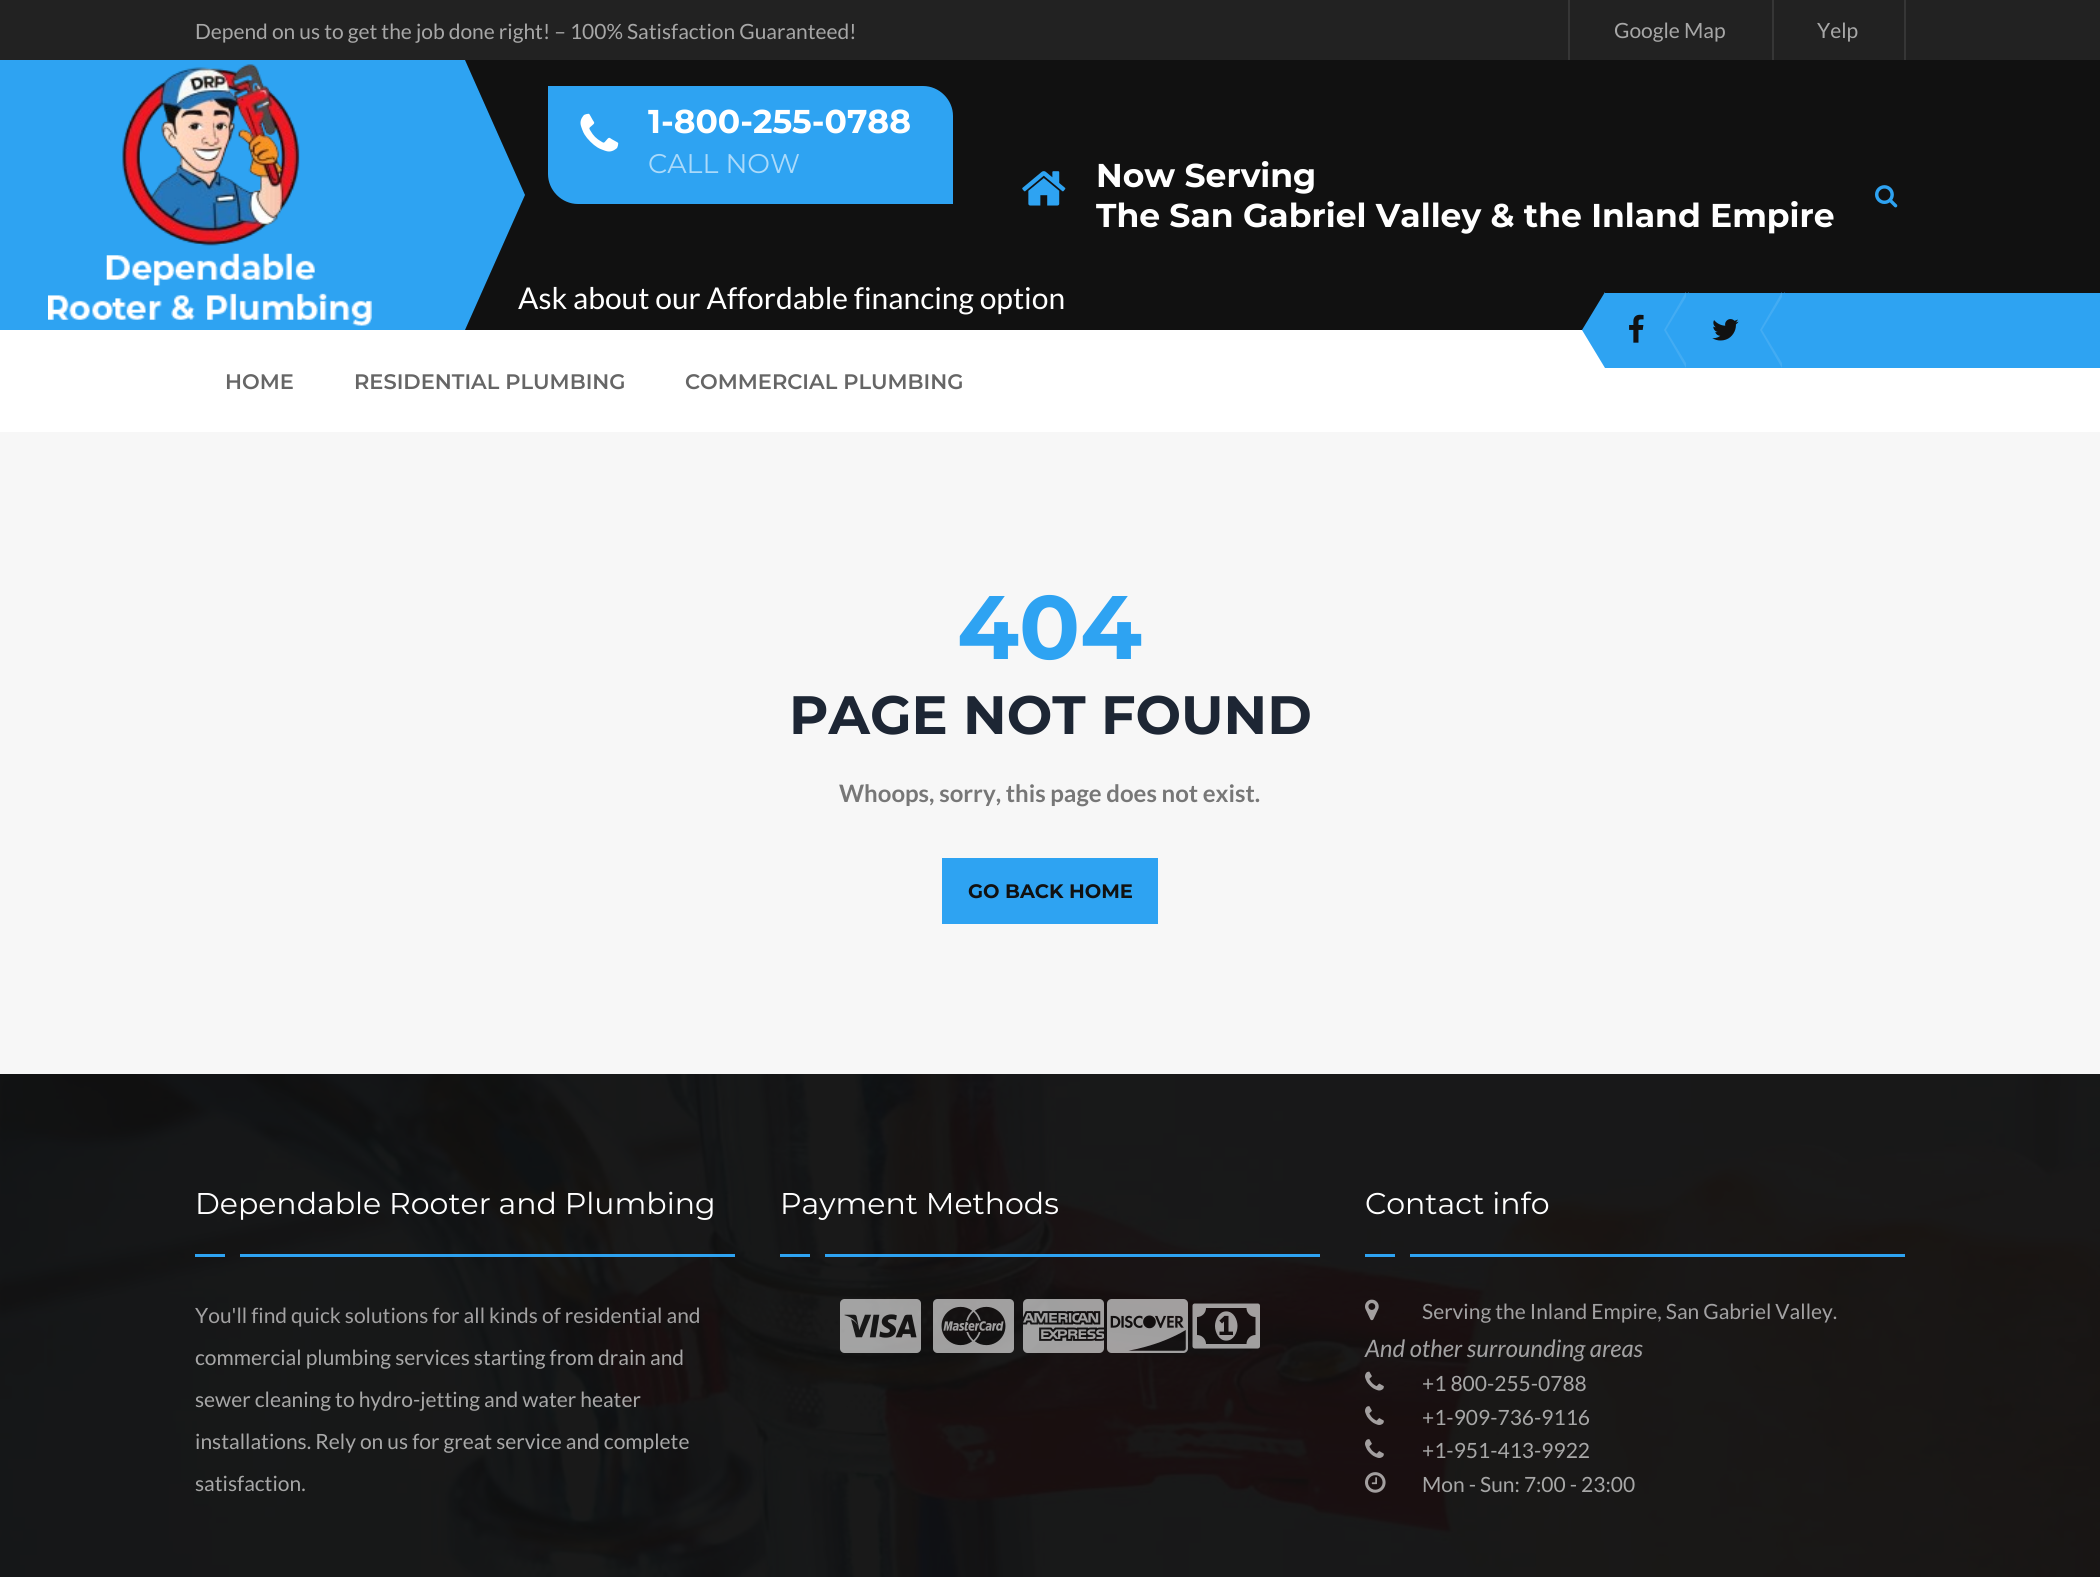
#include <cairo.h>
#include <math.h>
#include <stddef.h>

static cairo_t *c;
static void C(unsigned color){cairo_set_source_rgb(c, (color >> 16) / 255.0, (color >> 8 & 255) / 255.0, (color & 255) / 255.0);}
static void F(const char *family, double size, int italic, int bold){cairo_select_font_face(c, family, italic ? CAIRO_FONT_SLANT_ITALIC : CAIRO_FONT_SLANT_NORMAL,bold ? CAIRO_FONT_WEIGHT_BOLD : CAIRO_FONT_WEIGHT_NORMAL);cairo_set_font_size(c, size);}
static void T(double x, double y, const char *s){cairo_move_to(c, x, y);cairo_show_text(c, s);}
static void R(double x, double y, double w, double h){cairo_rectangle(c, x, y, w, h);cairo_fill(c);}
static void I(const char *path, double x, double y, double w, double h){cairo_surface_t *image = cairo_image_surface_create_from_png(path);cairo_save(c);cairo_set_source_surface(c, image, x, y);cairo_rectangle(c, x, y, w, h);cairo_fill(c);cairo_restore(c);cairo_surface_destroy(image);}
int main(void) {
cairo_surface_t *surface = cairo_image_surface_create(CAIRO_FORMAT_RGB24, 2100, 1577);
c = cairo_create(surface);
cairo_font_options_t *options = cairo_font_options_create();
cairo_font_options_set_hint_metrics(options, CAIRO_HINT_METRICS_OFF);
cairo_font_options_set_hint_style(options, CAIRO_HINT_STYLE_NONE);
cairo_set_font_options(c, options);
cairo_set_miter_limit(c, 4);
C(0xffffff);
cairo_paint(c);
C(0x222222);
R(0,0,2100,60);
F("Lato",21,0,0);
C(0xa7a7a7);
T(195,39,"Depend on us to get the job done right! – 100% Satisfaction Guaranteed!");
C(0x363636);
R(1568,0,2,60);
C(0xa7a7a7);
T(1614,38,"Google Map");
C(0x363636);
R(1904,0,2,60);
R(1772,0,2,60);
C(0xa7a7a7);
T(1817,38,"Yelp");
C(0x111111);
R(465,60,1635,270);
C(0x2ea3f2);
R(0,60,465,270);
I("1.png",48,64,324,262);
F("Lato",30,0,0);
C(0xffffff);
T(518,309,"Ask about our Affordable financing option");
C(0x2ea3f2);
cairo_new_path(c);
cairo_move_to(c,465,330);
cairo_line_to(c,465,60);
cairo_line_to(c,525,195);
cairo_close_path(c);
cairo_fill(c);
cairo_new_path(c);
cairo_move_to(c,549.5,87.5);
cairo_line_to(c,923,87.5);
cairo_curve_to(c,938.5,87.5,951.5,100.5,951.5,116);
cairo_line_to(c,951.5,202.5);
cairo_line_to(c,578,202.5);
cairo_curve_to(c,562.5,202.5,549.5,189.5,549.5,174);
cairo_close_path(c);
cairo_fill_preserve(c);
cairo_set_line_width(c,3);
cairo_stroke(c);
I("2.png",580,113,39,39);
F("Montserrat",33,0,1);
C(0xffffff);
T(648,133,"1-800-255-0788");
F("Montserrat",27,0,0);
C(0xabdafa);
T(648,173,"CALL NOW");
I("3.png",1022,171,44,35);
F("Montserrat",33,0,1);
C(0xffffff);
T(1096,187,"Now Serving");
T(1096,227,"The San Gabriel Valley & the Inland Empire");
I("4.png",1875,185,23,23);
C(0x2ea3f2);
R(1605,293,495,75);
cairo_new_path(c);
cairo_move_to(c,1605,292);
cairo_line_to(c,1605,368);
cairo_line_to(c,1582,330);
cairo_close_path(c);
cairo_fill(c);
I("5.png",1629,314,15,29);
C(0x43acf3);
cairo_new_path(c);
cairo_move_to(c,1686,292);
cairo_line_to(c,1686,368);
cairo_line_to(c,1664,330);
cairo_close_path(c);
cairo_fill(c);
C(0x2ea3f2);
cairo_new_path(c);
cairo_move_to(c,1689,292);
cairo_line_to(c,1689,368);
cairo_line_to(c,1666,330);
cairo_close_path(c);
cairo_fill(c);
I("6.png",1712,319,27,22);
C(0x43acf3);
cairo_new_path(c);
cairo_move_to(c,1782,292);
cairo_line_to(c,1782,368);
cairo_line_to(c,1760,330);
cairo_close_path(c);
cairo_fill(c);
C(0x2ea3f2);
cairo_new_path(c);
cairo_move_to(c,1785,292);
cairo_line_to(c,1785,368);
cairo_line_to(c,1762,330);
cairo_close_path(c);
cairo_fill(c);
F("Montserrat SemiBold",21,0,0);
C(0x666666);
T(225,389,"HOME");
T(354,389,"RESIDENTIAL PLUMBING");
T(685,389,"COMMERCIAL PLUMBING");
C(0xf7f7f7);
R(0,432,2100,642);
F("Montserrat",90,0,1);
C(0x2ea3f2);
T(957,659,"404");
F("Montserrat",54,0,1);
C(0x1d2634);
T(789,734,"PAGE NOT FOUND");
F("Lato",24,0,1);
C(0x777777);
T(839,802,"Whoops, sorry, this page does not exist.");
C(0x2ea3f2);
R(942,858,216,66);
F("Montserrat",19.5,0,1);
C(0x111111);
T(968,898,"GO BACK HOME");
I("7.png",0,1074,2100,503);
F("Montserrat",30,0,0);
C(0xffffff);
T(195,1214,"Dependable Rooter and Plumbing");
C(0x2ea3f2);
R(195,1254,30,3);
R(240,1254,495,3);
F("Lato",21,0,0);
C(0xa2a1a2);
T(195,1323,"You'll find quick solutions for all kinds of residential and");
C(0xa7a7a7);
T(195,1365,"commercial plumbing services starting from drain and");
T(195,1407,"sewer cleaning to hydro-jetting and water heater");
T(195,1449,"installations. Rely on us for great service and complete");
T(195,1491,"satisfaction.");
F("Montserrat",30,0,0);
C(0xffffff);
T(780,1214,"Payment Methods");
C(0x2ea3f2);
R(780,1254,30,3);
R(825,1254,495,3);
I("8.png",840,1299,81,54);
I("9.png",933,1299,81,54);
I("10.png",1023,1299,81,54);
I("11.png",1107,1299,81,54);
I("12.png",1192,1303,68,46);
C(0xffffff);
T(1365,1214,"Contact info");
C(0x2ea3f2);
R(1365,1254,30,3);
R(1410,1254,495,3);
I("13.png",1365,1299,14,22);
F("Lato",21,0,0);
C(0xa2a1a2);
T(1422,1319,"Serving the Inland Empire, San Gabriel Valley.");
F("Lato",24,1,0);
T(1365,1357,"And other surrounding areas");
I("14.png",1365,1371,19,20);
F("Lato",21,0,0);
C(0xa7a7a7);
T(1422,1391,"+1 800-255-0788");
I("15.png",1365,1406,19,19);
T(1422,1425,"+1-909-736-9116");
I("16.png",1365,1439,19,19);
T(1422,1458,"+1-951-413-9922");
I("17.png",1365,1472,21,21);
T(1422,1492,"Mon - Sun: 7:00 - 23:00");
cairo_surface_write_to_png(surface, "o.png");
cairo_font_options_destroy(options);
cairo_destroy(c);
cairo_surface_destroy(surface);
return 0;
}
